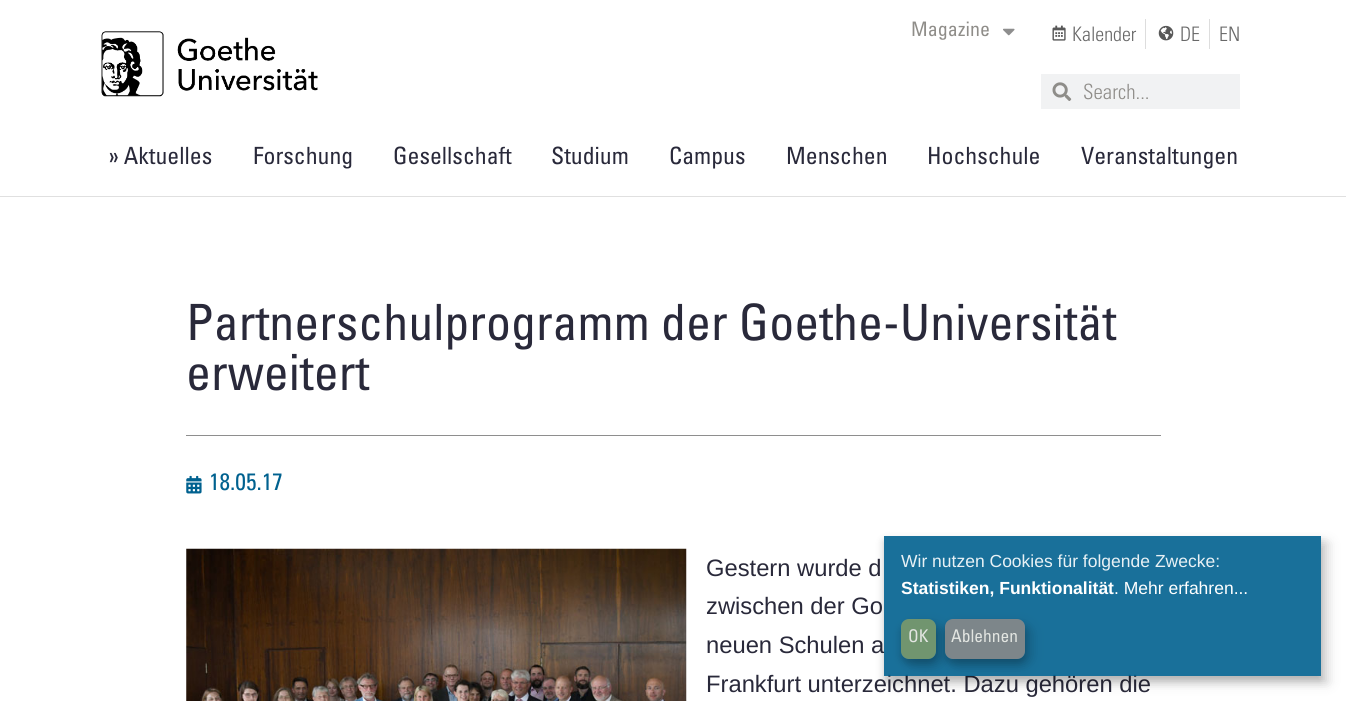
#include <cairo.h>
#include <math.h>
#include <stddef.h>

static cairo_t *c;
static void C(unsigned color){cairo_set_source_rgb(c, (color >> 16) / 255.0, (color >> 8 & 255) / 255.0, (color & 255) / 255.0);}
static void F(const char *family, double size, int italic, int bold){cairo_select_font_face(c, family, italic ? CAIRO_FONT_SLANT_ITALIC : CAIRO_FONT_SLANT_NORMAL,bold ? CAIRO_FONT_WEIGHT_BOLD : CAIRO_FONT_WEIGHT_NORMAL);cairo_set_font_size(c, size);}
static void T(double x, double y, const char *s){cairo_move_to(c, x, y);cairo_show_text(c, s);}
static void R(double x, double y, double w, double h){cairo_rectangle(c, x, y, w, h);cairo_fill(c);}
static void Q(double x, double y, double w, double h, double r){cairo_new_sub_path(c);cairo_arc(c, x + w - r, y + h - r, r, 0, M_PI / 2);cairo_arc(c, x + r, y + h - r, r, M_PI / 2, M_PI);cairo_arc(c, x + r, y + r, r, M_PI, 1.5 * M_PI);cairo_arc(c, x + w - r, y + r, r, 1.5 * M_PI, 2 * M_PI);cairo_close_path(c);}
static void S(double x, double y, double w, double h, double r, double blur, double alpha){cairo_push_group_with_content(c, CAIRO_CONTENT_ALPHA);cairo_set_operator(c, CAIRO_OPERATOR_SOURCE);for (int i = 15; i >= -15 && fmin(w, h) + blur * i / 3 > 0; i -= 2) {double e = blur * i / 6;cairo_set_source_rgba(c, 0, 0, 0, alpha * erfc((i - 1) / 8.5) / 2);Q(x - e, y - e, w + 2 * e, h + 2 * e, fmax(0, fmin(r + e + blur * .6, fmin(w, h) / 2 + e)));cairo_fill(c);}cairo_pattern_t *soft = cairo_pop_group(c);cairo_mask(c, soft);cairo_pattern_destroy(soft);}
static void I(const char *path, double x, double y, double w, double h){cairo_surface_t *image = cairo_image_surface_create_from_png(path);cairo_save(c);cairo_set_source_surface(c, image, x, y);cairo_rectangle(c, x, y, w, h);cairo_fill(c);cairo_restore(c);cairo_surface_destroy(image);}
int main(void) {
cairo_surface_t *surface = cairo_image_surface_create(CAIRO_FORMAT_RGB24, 1346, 701);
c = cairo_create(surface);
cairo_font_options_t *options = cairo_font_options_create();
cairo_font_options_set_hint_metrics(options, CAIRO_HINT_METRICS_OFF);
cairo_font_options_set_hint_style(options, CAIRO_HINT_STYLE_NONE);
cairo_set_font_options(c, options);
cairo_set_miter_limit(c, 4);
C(0xffffff);
cairo_paint(c);
I("1.png",101,31,217,66);
F("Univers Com",20,0,0);
C(0x8f8d89);
T(911,36,"Magazine");
I("2.png",1003,28,12,8);
I("3.png",1052,25,14,16);
F("Univers Com Light",20,0,0);
C(0x686868);
T(1072,41,"Kalender");
C(0xdddddd);
R(1145,19,1,30);
I("4.png",1158,25,16,16);
C(0x686868);
T(1180,41,"DE");
C(0xdddddd);
R(1209,19,1,30);
C(0x686868);
T(1219,41,"EN");
C(0xf1f2f3);
R(1041,74,199,35);
I("5.png",1052,82,20,19);
F("Univers Com Light",21,0,0);
C(0x8f8d89);
T(1083,99,"Search...");
C(0xe0e0e0);
R(0,196,1346,1);
F("Univers Com",23.75,0,0);
C(0x29293a);
T(108,164,"» Aktuelles");
T(253,164,"Forschung");
T(393,164,"Gesellschaft");
T(551,164,"Studium");
T(669,164,"Campus");
T(786,164,"Menschen");
T(927,164,"Hochschule");
T(1081,164,"Veranstaltungen");
F("Univers Com",50,0,0);
T(186,340,"Partnerschulprogramm der Goethe-Universität");
T(186,390,"erweitert");
C(0x8e8e8e);
R(186,435,975,1);
I("6.png",186,475,16,19);
F("Univers Com",23.75,0,0);
C(0x00618f);
T(209,490,"18.05.17");
I("7.png",186,548,501,153);
F("Liberation Sans",23.75,0,0);
C(0x29293a);
T(706,576,"Gestern wurde d");
T(706,614,"zwischen der Go");
T(706,653,"neuen Schulen a");
T(706,692,"Frankfurt unterzeichnet. Dazu gehören die");
cairo_save(c);
cairo_set_fill_rule(c,CAIRO_FILL_RULE_EVEN_ODD);
cairo_new_path(c);
cairo_move_to(c,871,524);
cairo_line_to(c,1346,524);
cairo_line_to(c,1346,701);
cairo_line_to(c,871,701);
cairo_close_path(c);
cairo_move_to(c,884,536);
cairo_line_to(c,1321,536);
cairo_line_to(c,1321,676);
cairo_line_to(c,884,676);
cairo_close_path(c);
cairo_clip(c);
C(0x000000);
S(890,543,438,140,0,6,.17);
cairo_restore(c);
cairo_save(c);
cairo_set_fill_rule(c,CAIRO_FILL_RULE_EVEN_ODD);
cairo_new_path(c);
cairo_move_to(c,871,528);
cairo_line_to(c,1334,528);
cairo_line_to(c,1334,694);
cairo_line_to(c,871,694);
cairo_close_path(c);
cairo_move_to(c,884,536);
cairo_line_to(c,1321,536);
cairo_line_to(c,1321,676);
cairo_line_to(c,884,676);
cairo_close_path(c);
cairo_clip(c);
C(0x000000);
S(884,541,437,140,0,4,.18);
cairo_restore(c);
cairo_set_source_rgba(c,0,0.38,0.561,0.9);
R(884,536,437,140);
F("Liberation Sans",17.5,0,0);
C(0xe8f1f5);
T(901,567,"Wir nutzen Cookies für folgende Zwecke:");
F("Liberation Sans",17.5,0,1);
C(0xffffff);
T(901,594,"Statistiken, Funktionalität");
F("Liberation Sans",17.5,0,0);
T(1114,594,". Mehr erfahren...");
cairo_save(c);
cairo_set_fill_rule(c,CAIRO_FILL_RULE_EVEN_ODD);
cairo_new_path(c);
cairo_move_to(c,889,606);
cairo_line_to(c,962,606);
cairo_line_to(c,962,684);
cairo_line_to(c,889,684);
cairo_close_path(c);
cairo_move_to(c,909,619);
cairo_line_to(c,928,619);
cairo_curve_to(c,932.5,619,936,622.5,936,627);
cairo_line_to(c,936,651);
cairo_curve_to(c,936,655.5,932.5,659,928,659);
cairo_line_to(c,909,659);
cairo_curve_to(c,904.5,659,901,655.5,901,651);
cairo_line_to(c,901,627);
cairo_curve_to(c,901,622.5,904.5,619,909,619);
cairo_close_path(c);
cairo_clip(c);
C(0x000000);
S(908,625,35,40,8,6,.17);
cairo_restore(c);
cairo_save(c);
cairo_set_fill_rule(c,CAIRO_FILL_RULE_EVEN_ODD);
cairo_new_path(c);
cairo_move_to(c,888,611);
cairo_line_to(c,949,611);
cairo_line_to(c,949,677);
cairo_line_to(c,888,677);
cairo_close_path(c);
cairo_move_to(c,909,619);
cairo_line_to(c,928,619);
cairo_curve_to(c,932.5,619,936,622.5,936,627);
cairo_line_to(c,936,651);
cairo_curve_to(c,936,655.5,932.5,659,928,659);
cairo_line_to(c,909,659);
cairo_curve_to(c,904.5,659,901,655.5,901,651);
cairo_line_to(c,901,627);
cairo_curve_to(c,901,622.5,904.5,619,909,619);
cairo_close_path(c);
cairo_clip(c);
C(0x000000);
S(901,624,35,40,8,4,.18);
cairo_restore(c);
cairo_set_source_rgba(c,0.482,0.6,0.42,0.9);
Q(901,619,35,40,8);
cairo_fill(c);
F("Univers Com",17.5,0,0);
C(0xe2e5e1);
T(908,642,"OK");
cairo_save(c);
cairo_set_fill_rule(c,CAIRO_FILL_RULE_EVEN_ODD);
cairo_new_path(c);
cairo_move_to(c,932,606);
cairo_line_to(c,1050,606);
cairo_line_to(c,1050,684);
cairo_line_to(c,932,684);
cairo_close_path(c);
cairo_move_to(c,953,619);
cairo_line_to(c,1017,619);
cairo_curve_to(c,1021.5,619,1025,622.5,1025,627);
cairo_line_to(c,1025,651);
cairo_curve_to(c,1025,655.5,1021.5,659,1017,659);
cairo_line_to(c,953,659);
cairo_curve_to(c,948.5,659,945,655.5,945,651);
cairo_line_to(c,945,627);
cairo_curve_to(c,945,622.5,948.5,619,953,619);
cairo_close_path(c);
cairo_clip(c);
C(0x000000);
S(951,625,80,40,8,6,.17);
cairo_restore(c);
cairo_save(c);
cairo_set_fill_rule(c,CAIRO_FILL_RULE_EVEN_ODD);
cairo_new_path(c);
cairo_move_to(c,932,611);
cairo_line_to(c,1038,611);
cairo_line_to(c,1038,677);
cairo_line_to(c,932,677);
cairo_close_path(c);
cairo_move_to(c,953,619);
cairo_line_to(c,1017,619);
cairo_curve_to(c,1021.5,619,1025,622.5,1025,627);
cairo_line_to(c,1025,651);
cairo_curve_to(c,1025,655.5,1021.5,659,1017,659);
cairo_line_to(c,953,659);
cairo_curve_to(c,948.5,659,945,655.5,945,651);
cairo_line_to(c,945,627);
cairo_curve_to(c,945,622.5,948.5,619,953,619);
cairo_close_path(c);
cairo_clip(c);
C(0x000000);
S(945,624,80,40,8,4,.18);
cairo_restore(c);
cairo_set_source_rgba(c,0.537,0.537,0.537,0.9);
Q(945,619,80,40,8);
cairo_fill(c);
C(0xe2e5e1);
T(951,642,"Ablehnen");
cairo_surface_write_to_png(surface, "o.png");
cairo_font_options_destroy(options);
cairo_destroy(c);
cairo_surface_destroy(surface);
return 0;
}
